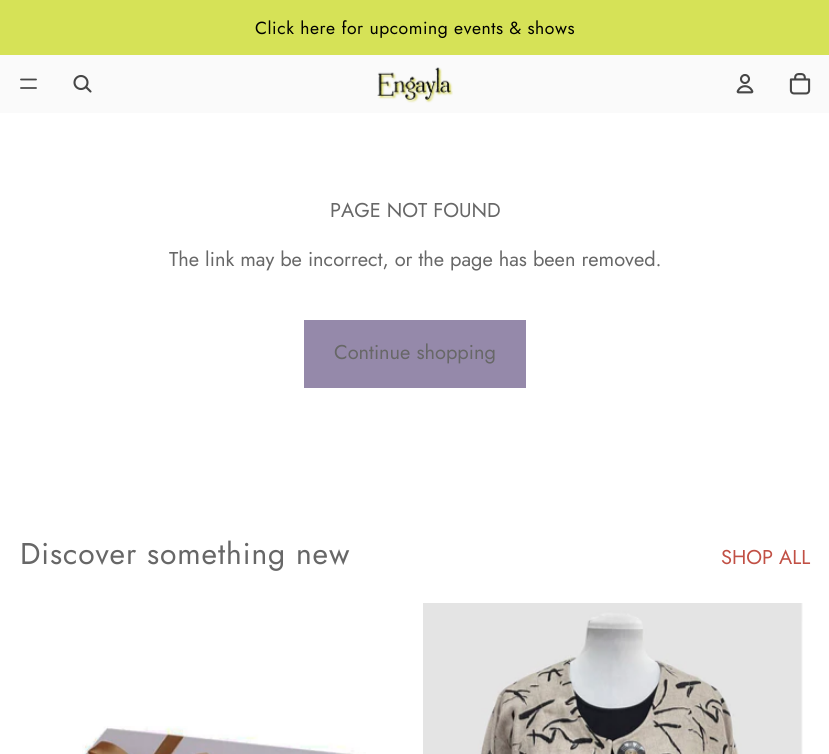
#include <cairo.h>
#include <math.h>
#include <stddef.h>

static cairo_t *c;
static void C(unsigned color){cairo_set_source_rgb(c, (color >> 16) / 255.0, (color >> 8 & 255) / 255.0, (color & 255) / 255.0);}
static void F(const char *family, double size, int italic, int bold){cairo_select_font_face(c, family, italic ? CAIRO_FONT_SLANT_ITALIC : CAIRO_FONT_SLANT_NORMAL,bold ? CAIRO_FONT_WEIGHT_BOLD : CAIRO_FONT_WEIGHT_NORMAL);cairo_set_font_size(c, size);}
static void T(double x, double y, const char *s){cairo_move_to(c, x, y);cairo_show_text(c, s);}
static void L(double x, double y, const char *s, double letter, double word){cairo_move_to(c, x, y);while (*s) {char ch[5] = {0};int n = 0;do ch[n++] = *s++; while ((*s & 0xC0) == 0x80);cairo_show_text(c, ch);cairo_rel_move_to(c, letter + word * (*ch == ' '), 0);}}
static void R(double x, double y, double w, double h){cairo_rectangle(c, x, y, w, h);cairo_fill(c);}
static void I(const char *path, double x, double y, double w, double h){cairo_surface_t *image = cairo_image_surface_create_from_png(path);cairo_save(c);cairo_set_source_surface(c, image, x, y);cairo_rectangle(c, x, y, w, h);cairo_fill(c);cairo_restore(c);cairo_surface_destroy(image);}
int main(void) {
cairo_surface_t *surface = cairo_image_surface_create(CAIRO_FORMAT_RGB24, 829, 754);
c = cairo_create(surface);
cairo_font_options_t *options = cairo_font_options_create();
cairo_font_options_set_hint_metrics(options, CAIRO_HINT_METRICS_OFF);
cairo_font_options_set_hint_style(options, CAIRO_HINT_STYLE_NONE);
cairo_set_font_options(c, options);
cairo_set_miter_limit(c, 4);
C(0xffffff);
cairo_paint(c);
C(0xd6e257);
R(0,0,829,55);
F("Jost",17.5,0,0);
C(0x000000);
L(255,34,"Click here for upcoming events & shows",.55,0);
C(0xfafafa);
R(0,55,829,58);
cairo_new_path(c);
cairo_move_to(c,21,79.5);
cairo_line_to(c,36,79.5);
cairo_move_to(c,21,88);
cairo_line_to(c,36,88);
C(0x464646);
cairo_set_line_width(c,1.8);
cairo_set_line_cap(c,CAIRO_LINE_CAP_ROUND);
cairo_stroke(c);
cairo_arc(c,81,82.5,6.5,0,2 * M_PI);
cairo_set_line_width(c,2.1);
cairo_set_line_cap(c,CAIRO_LINE_CAP_BUTT);
cairo_stroke(c);
cairo_new_path(c);
cairo_move_to(c,86,87);
cairo_line_to(c,90.5,91.5);
cairo_set_line_cap(c,CAIRO_LINE_CAP_ROUND);
cairo_set_line_join(c,CAIRO_LINE_JOIN_ROUND);
cairo_stroke(c);
I("1.png",377,67,76,36);
I("2.png",736,74,18,20);
I("3.png",789,73,22,22);
F("Jost",20,0,0);
C(0x676767);
T(330,217,"PAGE NOT FOUND");
T(169,266,"The link may be incorrect, or the page has been removed.");
C(0x9589aa);
R(304,320,222,68);
C(0x676767);
T(334,359,"Continue shopping");
F("Jost",30,0,0);
L(20,564,"Discover something new",.9,0);
F("Jost",20,0,0);
C(0xc15045);
T(721,564,"SHOP ALL");
I("4.png",82,726,284,28);
I("5.png",423,603,380,151);
cairo_surface_write_to_png(surface, "o.png");
cairo_font_options_destroy(options);
cairo_destroy(c);
cairo_surface_destroy(surface);
return 0;
}
